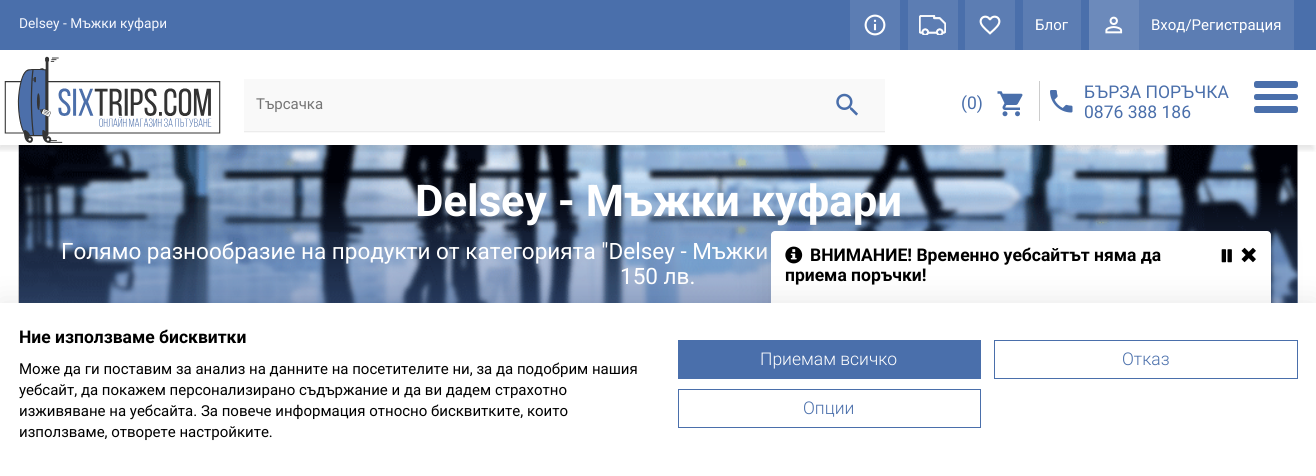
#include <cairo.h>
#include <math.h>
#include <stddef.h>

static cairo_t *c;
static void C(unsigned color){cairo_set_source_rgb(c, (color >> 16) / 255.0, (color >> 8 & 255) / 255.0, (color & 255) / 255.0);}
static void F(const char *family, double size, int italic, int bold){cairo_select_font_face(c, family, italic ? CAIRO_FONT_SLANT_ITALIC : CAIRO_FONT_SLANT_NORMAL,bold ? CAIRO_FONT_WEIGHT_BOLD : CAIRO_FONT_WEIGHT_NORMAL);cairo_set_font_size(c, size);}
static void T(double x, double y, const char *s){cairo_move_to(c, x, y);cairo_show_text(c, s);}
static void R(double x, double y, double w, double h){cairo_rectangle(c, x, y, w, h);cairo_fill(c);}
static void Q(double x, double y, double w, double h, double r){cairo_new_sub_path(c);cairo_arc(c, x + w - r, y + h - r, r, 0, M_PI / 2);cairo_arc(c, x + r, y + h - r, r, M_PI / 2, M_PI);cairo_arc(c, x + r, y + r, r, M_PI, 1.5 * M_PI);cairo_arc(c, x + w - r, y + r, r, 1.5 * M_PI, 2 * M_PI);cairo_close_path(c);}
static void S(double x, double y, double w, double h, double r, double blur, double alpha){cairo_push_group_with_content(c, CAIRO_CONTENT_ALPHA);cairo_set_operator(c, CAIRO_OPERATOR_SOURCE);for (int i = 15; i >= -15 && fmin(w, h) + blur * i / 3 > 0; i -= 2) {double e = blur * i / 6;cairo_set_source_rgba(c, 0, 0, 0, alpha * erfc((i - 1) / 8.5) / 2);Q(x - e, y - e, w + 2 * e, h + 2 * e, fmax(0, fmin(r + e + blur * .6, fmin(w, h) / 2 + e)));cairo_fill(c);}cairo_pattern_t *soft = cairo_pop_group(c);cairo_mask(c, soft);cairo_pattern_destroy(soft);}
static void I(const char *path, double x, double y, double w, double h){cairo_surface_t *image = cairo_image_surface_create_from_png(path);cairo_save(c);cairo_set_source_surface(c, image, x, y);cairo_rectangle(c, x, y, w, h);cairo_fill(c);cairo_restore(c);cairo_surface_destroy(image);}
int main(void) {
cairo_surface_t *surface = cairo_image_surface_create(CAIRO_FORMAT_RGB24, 1316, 476);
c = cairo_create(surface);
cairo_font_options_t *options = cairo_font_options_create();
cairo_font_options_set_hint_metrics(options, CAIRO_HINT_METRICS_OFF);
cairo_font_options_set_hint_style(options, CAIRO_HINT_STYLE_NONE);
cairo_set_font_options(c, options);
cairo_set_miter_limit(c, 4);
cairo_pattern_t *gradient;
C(0xffffff);
cairo_paint(c);
I("9.png",18,145,1280,158);
cairo_save(c);
cairo_rectangle(c,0,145,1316,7);
cairo_clip(c);
C(0x000000);
S(-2,5,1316,145,0,2.5,.1);
cairo_restore(c);
C(0x4a6fab);
R(0,0,1316,50);
F("Roboto",13.75,0,0);
C(0xf4f6fd);
T(19,28,"Delsey - Мъжки куфари");
C(0x5c7db3);
R(850,0,50,50);
I("1.png",864,14,22,22);
R(908,0,50,50);
I("2.png",919,15,27,20);
R(965,0,50,50);
I("3.png",979,15,22,20);
R(1023,0,58,50);
F("Roboto",15,0,0);
C(0xffffff);
T(1035,30,"Блог");
C(0x5c7db3);
R(1139,0,155,50);
C(0x6c8abb);
R(1089,0,50,50);
I("4.png",1105,16,18,18);
C(0xffffff);
T(1151,30,"Вход/Регистрация");
I("5.png",4,56,217,87);
C(0xf9f9f9);
R(244,79,641,54);
C(0xececec);
R(244,131,641,1);
C(0x757575);
T(256,109,"Търсачка");
I("6.png",836,93,22,23);
F("Roboto",17.5,0,0);
C(0x4a6fab);
T(961,109,"(0)");
I("7.png",997,91,26,26);
I("8.png",1050,90,23,23);
C(0xcccccc);
R(1039,81,1,40);
C(0x4a6fab);
T(1084,98,"БЪРЗА ПОРЪЧКА");
T(1084,118,"0876 388 186");
cairo_new_path(c);
cairo_move_to(c,1256.5,81);
cairo_line_to(c,1276,81);
cairo_line_to(c,1276,88);
cairo_line_to(c,1256.5,88);
cairo_curve_to(c,1255,88,1254,87,1254,85.5);
cairo_line_to(c,1254,83.5);
cairo_curve_to(c,1254,82,1255,81,1256.5,81);
cairo_close_path(c);
cairo_fill(c);
cairo_new_path(c);
cairo_move_to(c,1276,81);
cairo_line_to(c,1295.5,81);
cairo_curve_to(c,1297,81,1298,82,1298,83.5);
cairo_line_to(c,1298,85.5);
cairo_curve_to(c,1298,87,1297,88,1295.5,88);
cairo_line_to(c,1276,88);
cairo_close_path(c);
cairo_fill(c);
cairo_new_path(c);
cairo_move_to(c,1256.5,94);
cairo_line_to(c,1276,94);
cairo_line_to(c,1276,100);
cairo_line_to(c,1256.5,100);
cairo_curve_to(c,1255,100,1254,99,1254,97.5);
cairo_line_to(c,1254,96.5);
cairo_curve_to(c,1254,95,1255,94,1256.5,94);
cairo_close_path(c);
cairo_fill(c);
cairo_new_path(c);
cairo_move_to(c,1276,94);
cairo_line_to(c,1295.5,94);
cairo_curve_to(c,1297,94,1298,95,1298,96.5);
cairo_line_to(c,1298,97.5);
cairo_curve_to(c,1298,99,1297,100,1295.5,100);
cairo_line_to(c,1276,100);
cairo_close_path(c);
cairo_fill(c);
cairo_new_path(c);
cairo_move_to(c,1256.5,106);
cairo_line_to(c,1276,106);
cairo_line_to(c,1276,113);
cairo_line_to(c,1256.5,113);
cairo_curve_to(c,1255,113,1254,112,1254,110.5);
cairo_line_to(c,1254,108.5);
cairo_curve_to(c,1254,107,1255,106,1256.5,106);
cairo_close_path(c);
cairo_fill(c);
cairo_new_path(c);
cairo_move_to(c,1276,106);
cairo_line_to(c,1295.5,106);
cairo_curve_to(c,1297,106,1298,107,1298,108.5);
cairo_line_to(c,1298,110.5);
cairo_curve_to(c,1298,112,1297,113,1295.5,113);
cairo_line_to(c,1276,113);
cairo_close_path(c);
cairo_fill(c);
gradient = cairo_pattern_create_linear(658,309,658,145);
cairo_pattern_add_color_stop_rgba(gradient,0,0.29,0.435,0.671,.5);
cairo_pattern_add_color_stop_rgba(gradient,.8,0.29,0.435,0.671,0);
cairo_set_source(c,gradient);
cairo_pattern_destroy(gradient);
R(19,183,1279,120);
F("Roboto",43.75,0,1);
C(0xffffff);
T(415,216,"Delsey - Мъжки куфари");
F("Roboto",22.5,0,0);
T(61,259,"Голямо разнообразие на продукти от категорията \"Delsey - Мъжки");
T(620,284,"150 лв.");
C(0x000000);
S(771,239,500,214,4,17.5,.1);
C(0xffffff);
Q(771,231,500,214,4);
cairo_fill(c);
I("10.png",785,246,18,18);
F("Roboto",17.5,0,1);
C(0x000000);
T(810,261,"ВНИМАНИЕ! Временно уебсайтът няма да");
T(785,281,"приема поръчки!");
I("11.png",1221,249,11,14);
I("12.png",1241,247,15,16);
C(0x000000);
S(0,303,1316,173,0,15,.1);
C(0xffffff);
R(0,303,1316,173);
C(0x000000);
T(19,343,"Ние използваме бисквитки");
F("Roboto",15,0,0);
T(19,374,"Може да ги поставим за анализ на данните на посетителите ни, за да подобрим нашия");
T(19,395,"уебсайт, да покажем персонализирано съдържание и да ви дадем страхотно");
T(19,416,"изживяване на уебсайта. За повече информация относно бисквитките, които");
T(19,437,"използваме, отворете настройките.");
C(0x4a6fab);
R(678,340,303,39);
F("Roboto Light",17.5,0,0);
C(0xffffff);
T(760,365,"Приемам всичко");
cairo_rectangle(c,994.5,340.5,303,38);
C(0x4a6fab);
cairo_set_line_width(c,1);
cairo_stroke(c);
T(1122,365,"Отказ");
cairo_rectangle(c,678.5,389.5,302,38);
cairo_stroke(c);
T(803,414,"Опции");
cairo_surface_write_to_png(surface, "o.png");
cairo_font_options_destroy(options);
cairo_destroy(c);
cairo_surface_destroy(surface);
return 0;
}
